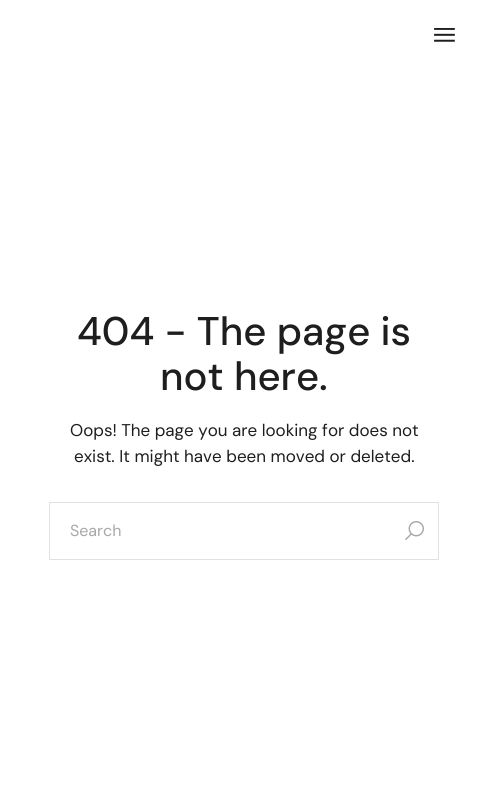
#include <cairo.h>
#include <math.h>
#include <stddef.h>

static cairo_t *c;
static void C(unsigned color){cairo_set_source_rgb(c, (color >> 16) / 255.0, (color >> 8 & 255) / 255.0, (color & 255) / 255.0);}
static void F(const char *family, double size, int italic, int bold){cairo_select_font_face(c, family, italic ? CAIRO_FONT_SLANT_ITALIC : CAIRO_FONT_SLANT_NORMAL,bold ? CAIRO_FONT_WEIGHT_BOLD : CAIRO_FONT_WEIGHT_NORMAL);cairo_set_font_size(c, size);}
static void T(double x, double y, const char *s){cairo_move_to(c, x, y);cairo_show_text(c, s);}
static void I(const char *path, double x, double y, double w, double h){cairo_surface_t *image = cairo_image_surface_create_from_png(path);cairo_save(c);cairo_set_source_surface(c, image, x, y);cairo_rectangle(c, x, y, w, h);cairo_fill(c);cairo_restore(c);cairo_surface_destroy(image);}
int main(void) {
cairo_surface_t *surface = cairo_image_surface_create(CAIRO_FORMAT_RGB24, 488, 809);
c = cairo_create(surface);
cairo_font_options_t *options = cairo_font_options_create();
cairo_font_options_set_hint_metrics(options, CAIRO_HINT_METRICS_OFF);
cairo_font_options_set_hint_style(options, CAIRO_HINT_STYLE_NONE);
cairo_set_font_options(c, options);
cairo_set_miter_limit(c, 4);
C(0xffffff);
cairo_paint(c);
I("1.png",434,28,21,14);
F("DM Sans Medium",40,0,0);
C(0x1e1e1e);
T(77,345,"404 - The page is");
T(160,390,"not here.");
F("DM Sans",17,0,0);
T(70,436,"Oops! The page you are looking for does not");
T(74,462,"exist. It might have been moved or deleted.");
cairo_rectangle(c,49.5,502.5,389,57);
C(0xe1e1e1);
cairo_set_line_width(c,1);
cairo_stroke(c);
F("DM Sans",16,0,0);
C(0xa8a7a7);
T(70,536,"Search");
I("2.png",405,521,19,19);
cairo_surface_write_to_png(surface, "o.png");
cairo_font_options_destroy(options);
cairo_destroy(c);
cairo_surface_destroy(surface);
return 0;
}
